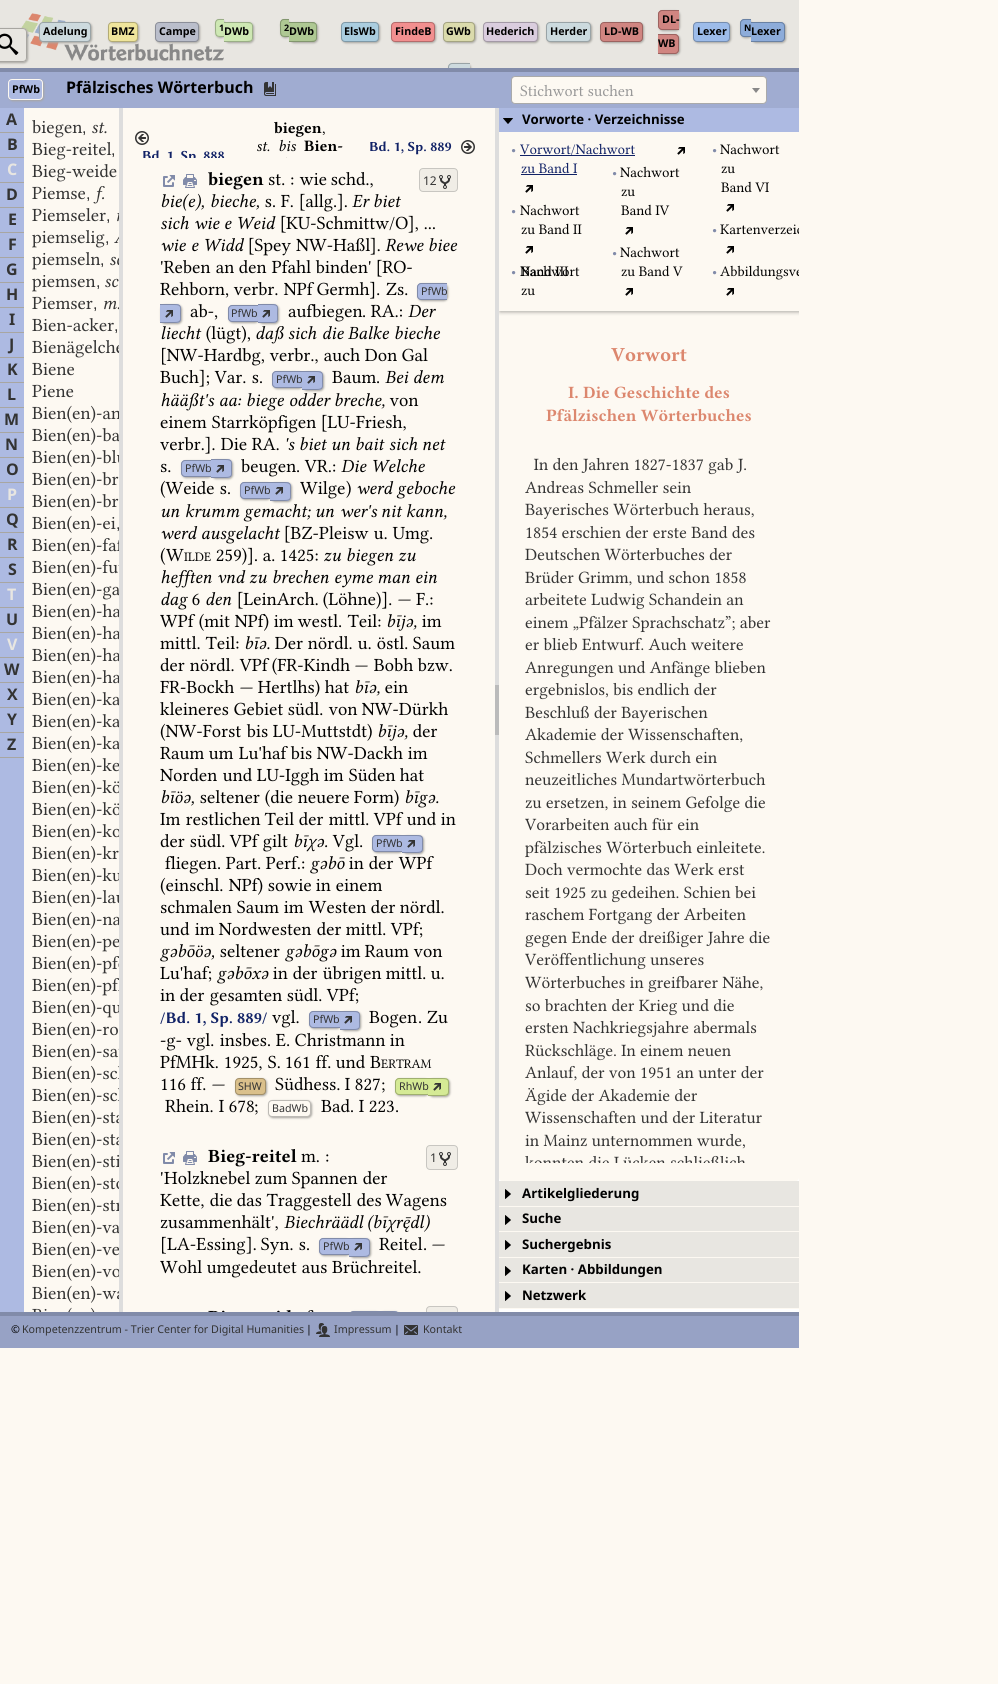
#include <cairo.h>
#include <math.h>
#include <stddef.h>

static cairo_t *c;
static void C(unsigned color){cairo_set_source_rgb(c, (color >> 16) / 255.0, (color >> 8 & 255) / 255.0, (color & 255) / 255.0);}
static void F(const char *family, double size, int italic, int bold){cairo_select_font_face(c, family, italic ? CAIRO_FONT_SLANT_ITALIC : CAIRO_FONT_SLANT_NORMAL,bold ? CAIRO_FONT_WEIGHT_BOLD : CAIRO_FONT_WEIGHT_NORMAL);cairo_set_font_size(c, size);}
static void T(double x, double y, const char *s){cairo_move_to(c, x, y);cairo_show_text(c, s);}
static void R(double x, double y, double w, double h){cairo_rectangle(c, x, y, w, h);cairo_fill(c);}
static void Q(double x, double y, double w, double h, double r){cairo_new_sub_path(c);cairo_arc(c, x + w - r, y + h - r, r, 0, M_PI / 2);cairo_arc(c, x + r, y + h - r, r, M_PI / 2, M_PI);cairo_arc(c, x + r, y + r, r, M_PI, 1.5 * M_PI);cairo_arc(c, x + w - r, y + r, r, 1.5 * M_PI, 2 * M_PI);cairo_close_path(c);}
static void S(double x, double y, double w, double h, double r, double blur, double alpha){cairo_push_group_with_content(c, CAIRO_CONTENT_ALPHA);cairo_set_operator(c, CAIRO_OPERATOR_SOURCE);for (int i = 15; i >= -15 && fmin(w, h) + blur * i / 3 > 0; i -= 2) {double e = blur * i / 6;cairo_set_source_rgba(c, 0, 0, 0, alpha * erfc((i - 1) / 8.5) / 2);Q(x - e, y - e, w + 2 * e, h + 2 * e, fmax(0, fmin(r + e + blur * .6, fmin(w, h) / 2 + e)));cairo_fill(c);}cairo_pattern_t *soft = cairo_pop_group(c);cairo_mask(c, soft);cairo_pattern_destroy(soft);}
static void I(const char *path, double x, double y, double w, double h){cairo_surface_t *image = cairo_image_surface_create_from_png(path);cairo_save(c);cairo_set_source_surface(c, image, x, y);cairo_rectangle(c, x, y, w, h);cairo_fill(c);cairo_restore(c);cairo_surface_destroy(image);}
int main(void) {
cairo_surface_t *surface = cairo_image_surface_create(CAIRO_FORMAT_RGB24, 998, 1684);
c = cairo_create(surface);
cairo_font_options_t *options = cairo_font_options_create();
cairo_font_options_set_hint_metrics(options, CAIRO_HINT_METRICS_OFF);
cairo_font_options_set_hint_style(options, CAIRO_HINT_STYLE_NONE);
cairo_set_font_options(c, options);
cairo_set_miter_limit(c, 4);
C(0xfdf9f2);
cairo_paint(c);
C(0x818ba9);
R(0,68,799,4);
C(0xe8e6e1);
R(0,0,799,68);
I("1.png",21,13,203,48);
C(0xa8a6a1);
S(-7,29,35,34,4,1,1);
C(0xe8e6e1);
cairo_new_path(c);
cairo_move_to(c,0,28);
cairo_line_to(c,23,28);
cairo_curve_to(c,25,28,27,30,27,32);
cairo_line_to(c,27,58);
cairo_curve_to(c,27,60,25,62,23,62);
cairo_line_to(c,0,62);
cairo_close_path(c);
cairo_fill(c);
Q(-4.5,28.5,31,33,3.5);
C(0xa8a6a1);
cairo_set_line_width(c,1);
cairo_stroke(c);
I("2.png",0,33,19,22);
C(0xa8a6a1);
S(40,23,52,20,4,1,1);
C(0xcddade);
Q(39.5,22.5,51,19,3.5);
cairo_fill_preserve(c);
C(0x99a3a6);
cairo_stroke(c);
F("Noto Sans",10.7,0,1);
C(0x000000);
T(43,35,"Adelung");
C(0xa8a6a1);
S(109,23,30,20,4,1,1);
C(0xefe59b);
Q(108.5,22.5,29,19,3.5);
cairo_fill_preserve(c);
C(0xb3ab74);
cairo_stroke(c);
C(0x000000);
T(111,35,"BMZ");
C(0xa8a6a1);
S(156,23,44,20,4,1,1);
C(0xbabecb);
Q(155.5,22.5,43,19,3.5);
cairo_fill_preserve(c);
C(0x8b8e98);
cairo_stroke(c);
C(0x000000);
T(159,35,"Campe");
C(0xa8a6a1);
S(216,20,9,18,4,1,1);
C(0xcee8b3);
cairo_new_path(c);
cairo_move_to(c,219,19);
cairo_line_to(c,224,19);
cairo_line_to(c,224,37);
cairo_line_to(c,219,37);
cairo_curve_to(c,217,37,215,35,215,33);
cairo_line_to(c,215,23);
cairo_curve_to(c,215,21,217,19,219,19);
cairo_close_path(c);
cairo_fill(c);
C(0x9aae86);
cairo_set_fill_rule(c,CAIRO_FILL_RULE_EVEN_ODD);
cairo_new_path(c);
cairo_move_to(c,219,19);
cairo_line_to(c,224,19);
cairo_line_to(c,224,37);
cairo_curve_to(c,215.5,37,215,37,215,28);
cairo_curve_to(c,215,25,214,19,219,19);
cairo_close_path(c);
cairo_move_to(c,219,20);
cairo_line_to(c,224,20);
cairo_line_to(c,224,36);
cairo_curve_to(c,216,36,216,36.5,216,28);
cairo_curve_to(c,216,25.5,215,20,219,20);
cairo_close_path(c);
cairo_fill(c);
C(0xa8a6a1);
S(225,23,29,20,4,1,1);
F("Noto Sans",9,0,1);
C(0x000000);
T(219,31,"1");
C(0xcee8b3);
cairo_new_path(c);
cairo_move_to(c,224,22);
cairo_line_to(c,249,22);
cairo_curve_to(c,251,22,253,24,253,26);
cairo_line_to(c,253,38);
cairo_curve_to(c,253,40,251,42,249,42);
cairo_line_to(c,224,42);
cairo_close_path(c);
cairo_fill(c);
C(0x9aae86);
cairo_new_path(c);
cairo_move_to(c,224,22);
cairo_line_to(c,249,22);
cairo_curve_to(c,251,22,253,24,253,26);
cairo_line_to(c,253,38);
cairo_curve_to(c,253,40,251,42,249,42);
cairo_line_to(c,224,42);
cairo_close_path(c);
cairo_move_to(c,224,23);
cairo_line_to(c,245,23);
cairo_curve_to(c,253.5,23,252,24,252,32);
cairo_curve_to(c,252,40,253.5,41,245,41);
cairo_line_to(c,224,41);
cairo_close_path(c);
cairo_fill(c);
F("Noto Sans",10.7,0,1);
C(0x000000);
T(224,35,"DWb");
C(0xa8a6a1);
S(281,20,9,18,4,1,1);
C(0xaec893);
cairo_new_path(c);
cairo_move_to(c,284,19);
cairo_line_to(c,289,19);
cairo_line_to(c,289,37);
cairo_line_to(c,284,37);
cairo_curve_to(c,282,37,280,35,280,33);
cairo_line_to(c,280,23);
cairo_curve_to(c,280,21,282,19,284,19);
cairo_close_path(c);
cairo_fill(c);
C(0x82966e);
cairo_new_path(c);
cairo_move_to(c,284,19);
cairo_line_to(c,289,19);
cairo_line_to(c,289,37);
cairo_curve_to(c,280.5,37,280,37,280,28);
cairo_curve_to(c,280,25,279,19,284,19);
cairo_close_path(c);
cairo_move_to(c,284,20);
cairo_line_to(c,289,20);
cairo_line_to(c,289,36);
cairo_curve_to(c,281,36,281,36.5,281,28);
cairo_curve_to(c,281,25.5,280,20,284,20);
cairo_close_path(c);
cairo_fill(c);
C(0xa8a6a1);
S(290,23,28,20,4,1,1);
F("Noto Sans",9,0,1);
C(0x000000);
T(284,31,"2");
C(0xaec893);
cairo_new_path(c);
cairo_move_to(c,289,22);
cairo_line_to(c,313,22);
cairo_curve_to(c,315,22,317,24,317,26);
cairo_line_to(c,317,38);
cairo_curve_to(c,317,40,315,42,313,42);
cairo_line_to(c,289,42);
cairo_close_path(c);
cairo_fill(c);
C(0x82966e);
cairo_new_path(c);
cairo_move_to(c,289,22);
cairo_line_to(c,313,22);
cairo_curve_to(c,315,22,317,24,317,26);
cairo_line_to(c,317,38);
cairo_curve_to(c,317,40,315,42,313,42);
cairo_line_to(c,289,42);
cairo_close_path(c);
cairo_move_to(c,289,23);
cairo_line_to(c,309,23);
cairo_curve_to(c,317.5,23,316,24,316,32);
cairo_curve_to(c,316,40,317.5,41,309,41);
cairo_line_to(c,289,41);
cairo_close_path(c);
cairo_fill(c);
F("Noto Sans",10.7,0,1);
C(0x000000);
T(289,35,"DWb");
C(0xa8a6a1);
S(342,23,38,20,4,1,1);
C(0xaacddf);
Q(341.5,22.5,37,19,3.5);
cairo_fill_preserve(c);
C(0x7f99a7);
cairo_stroke(c);
C(0x000000);
T(344,35,"ElsWb");
C(0xa8a6a1);
S(392,23,44,20,4,1,1);
C(0xf28f8f);
Q(391.5,22.5,43,19,3.5);
cairo_fill_preserve(c);
C(0xb56b6b);
cairo_stroke(c);
C(0x000000);
T(395,35,"FindeB");
C(0xa8a6a1);
S(444,23,32,20,4,1,1);
C(0xdbdbac);
Q(443.5,22.5,31,19,3.5);
cairo_fill_preserve(c);
C(0xa4a481);
cairo_stroke(c);
C(0x000000);
T(446,35,"GWb");
C(0xa8a6a1);
S(484,23,55,20,4,1,1);
C(0xdacdde);
Q(483.5,22.5,54,19,3.5);
cairo_fill_preserve(c);
C(0xa399a6);
cairo_stroke(c);
C(0x000000);
T(486,35,"Hederich");
C(0xa8a6a1);
S(547,23,45,20,4,1,1);
C(0xccdade);
Q(546.5,22.5,44,19,3.5);
cairo_fill_preserve(c);
C(0x99a3a6);
cairo_stroke(c);
C(0x000000);
T(550,35,"Herder");
C(0xa8a6a1);
S(601,23,43,20,4,1,1);
C(0xd08581);
Q(600.5,22.5,42,19,3.5);
cairo_fill_preserve(c);
C(0x9c6360);
cairo_stroke(c);
C(0x000000);
T(604,35,"LD-WB");
C(0xa8a6a1);
S(659,11,21,20,4,1,1);
C(0xd08581);
cairo_new_path(c);
cairo_move_to(c,662,10);
cairo_line_to(c,679,10);
cairo_line_to(c,679,30);
cairo_line_to(c,662,30);
cairo_curve_to(c,660,30,658,28,658,26);
cairo_line_to(c,658,14);
cairo_curve_to(c,658,12,660,10,662,10);
cairo_close_path(c);
cairo_fill(c);
C(0x9c6360);
cairo_new_path(c);
cairo_move_to(c,662,10);
cairo_line_to(c,679,10);
cairo_line_to(c,679,30);
cairo_line_to(c,662,30);
cairo_curve_to(c,660,30,658,28,658,26);
cairo_line_to(c,658,14);
cairo_curve_to(c,658,12,660,10,662,10);
cairo_close_path(c);
cairo_move_to(c,662,11);
cairo_line_to(c,679,11);
cairo_line_to(c,679,29);
cairo_line_to(c,662,29);
cairo_curve_to(c,660.5,29,659,27.5,659,26);
cairo_line_to(c,659,14);
cairo_curve_to(c,659,12.5,660.5,11,662,11);
cairo_close_path(c);
cairo_fill(c);
C(0x000000);
T(662,23,"DL-");
C(0xa8a6a1);
S(659,35,21,20,4,1,1);
C(0xd08581);
cairo_new_path(c);
cairo_move_to(c,658,34);
cairo_line_to(c,675,34);
cairo_curve_to(c,677,34,679,36,679,38);
cairo_line_to(c,679,50);
cairo_curve_to(c,679,52,677,54,675,54);
cairo_line_to(c,658,54);
cairo_close_path(c);
cairo_fill(c);
C(0x9c6360);
cairo_new_path(c);
cairo_move_to(c,658,34);
cairo_line_to(c,675,34);
cairo_curve_to(c,677,34,679,36,679,38);
cairo_line_to(c,679,50);
cairo_curve_to(c,679,52,677,54,675,54);
cairo_line_to(c,658,54);
cairo_close_path(c);
cairo_move_to(c,658,35);
cairo_line_to(c,675,35);
cairo_curve_to(c,676.5,35,678,36.5,678,38);
cairo_line_to(c,678,50);
cairo_curve_to(c,678,51.5,676.5,53,675,53);
cairo_line_to(c,658,53);
cairo_close_path(c);
cairo_fill(c);
C(0x000000);
T(658,47,"WB");
C(0xa8a6a1);
S(694,23,37,20,4,1,1);
C(0x9dbcea);
Q(693.5,22.5,36,19,3.5);
cairo_fill_preserve(c);
C(0x758daf);
cairo_stroke(c);
C(0x000000);
T(697,35,"Lexer");
C(0xa8a6a1);
S(741,20,11,18,4,1,1);
C(0x8dacda);
cairo_new_path(c);
cairo_move_to(c,744,19);
cairo_line_to(c,751,19);
cairo_line_to(c,751,37);
cairo_line_to(c,744,37);
cairo_curve_to(c,742,37,740,35,740,33);
cairo_line_to(c,740,23);
cairo_curve_to(c,740,21,742,19,744,19);
cairo_close_path(c);
cairo_fill(c);
C(0x6981a3);
cairo_new_path(c);
cairo_move_to(c,744,19);
cairo_line_to(c,751,19);
cairo_line_to(c,751,37);
cairo_line_to(c,744,37);
cairo_curve_to(c,742,37,740,35,740,33);
cairo_line_to(c,740,23);
cairo_curve_to(c,740,21,742,19,744,19);
cairo_close_path(c);
cairo_move_to(c,744,20);
cairo_line_to(c,751,20);
cairo_line_to(c,751,36);
cairo_line_to(c,744,36);
cairo_curve_to(c,742.5,36,741,34.5,741,33);
cairo_line_to(c,741,23);
cairo_curve_to(c,741,21.5,742.5,20,744,20);
cairo_close_path(c);
cairo_fill(c);
C(0xa8a6a1);
S(752,23,34,20,4,1,1);
F("Noto Sans",9,0,1);
C(0x000000);
T(744,31,"N");
C(0x8dacda);
cairo_new_path(c);
cairo_move_to(c,751,22);
cairo_line_to(c,781,22);
cairo_curve_to(c,783,22,785,24,785,26);
cairo_line_to(c,785,38);
cairo_curve_to(c,785,40,783,42,781,42);
cairo_line_to(c,751,42);
cairo_close_path(c);
cairo_fill(c);
C(0x6981a3);
cairo_new_path(c);
cairo_move_to(c,751,22);
cairo_line_to(c,781,22);
cairo_curve_to(c,783,22,785,24,785,26);
cairo_line_to(c,785,38);
cairo_curve_to(c,785,40,783,42,781,42);
cairo_line_to(c,751,42);
cairo_close_path(c);
cairo_move_to(c,751,23);
cairo_line_to(c,781,23);
cairo_curve_to(c,782.5,23,784,24.5,784,26);
cairo_line_to(c,784,38);
cairo_curve_to(c,784,39.5,782.5,41,781,41);
cairo_line_to(c,751,41);
cairo_close_path(c);
cairo_fill(c);
F("Noto Sans",10.7,0,1);
C(0x000000);
T(751,35,"Lexer");
cairo_save(c);
cairo_set_fill_rule(c,CAIRO_FILL_RULE_WINDING);
cairo_rectangle(c,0,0,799,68);
cairo_clip(c);
C(0xa8a6a1);
S(449,64,22,20,4,1,1);
cairo_restore(c);
C(0xcddade);
cairo_new_path(c);
cairo_move_to(c,452,63);
cairo_line_to(c,470,63);
cairo_line_to(c,470,68);
cairo_line_to(c,448,68);
cairo_line_to(c,448,67);
cairo_curve_to(c,448,65,450,63,452,63);
cairo_close_path(c);
cairo_fill(c);
cairo_save(c);
cairo_set_fill_rule(c,CAIRO_FILL_RULE_WINDING);
cairo_rectangle(c,0,0,799,68);
cairo_clip(c);
C(0x99a3a6);
cairo_set_fill_rule(c,CAIRO_FILL_RULE_EVEN_ODD);
cairo_new_path(c);
cairo_move_to(c,452,63);
cairo_line_to(c,470,63);
cairo_line_to(c,470,83);
cairo_line_to(c,452,83);
cairo_curve_to(c,450,83,448,81,448,79);
cairo_line_to(c,448,67);
cairo_curve_to(c,448,65,450,63,452,63);
cairo_close_path(c);
cairo_move_to(c,452,64);
cairo_line_to(c,470,64);
cairo_line_to(c,470,82);
cairo_line_to(c,452,82);
cairo_curve_to(c,450.5,82,449,80.5,449,79);
cairo_line_to(c,449,67);
cairo_curve_to(c,449,65.5,450.5,64,452,64);
cairo_close_path(c);
cairo_fill(c);
cairo_restore(c);
C(0xa0acd1);
R(0,72,799,36);
C(0xa8a6a1);
S(9,80,35,21,4,1,1);
C(0xadbae2);
Q(8.5,79.5,34,20,3.5);
cairo_fill_preserve(c);
C(0xfdf9f2);
cairo_stroke(c);
C(0x000000);
T(12,93,"PfWb");
F("Noto Sans",16,0,1);
T(66,93,"Pfälzisches Wörterbuch");
I("3.png",264,82,12,14);
C(0xfdf9f2);
Q(511.5,76.5,255,27,3.5);
cairo_fill_preserve(c);
C(0xaaaaaa);
cairo_stroke(c);
I("4.png",520,84,114,13);
C(0x888888);
cairo_set_fill_rule(c,CAIRO_FILL_RULE_WINDING);
cairo_new_path(c);
cairo_move_to(c,752,88);
cairo_line_to(c,760,88);
cairo_line_to(c,756,93);
cairo_close_path(c);
cairo_fill(c);
C(0xdddddd);
R(119,108,4,1204);
C(0xffffff);
R(499,1178,300,134);
C(0xfdf9f2);
cairo_new_path(c);
cairo_move_to(c,499,132);
cairo_line_to(c,799,132);
cairo_line_to(c,799,1178);
cairo_curve_to(c,799,1179.5,797.5,1181,796,1181);
cairo_line_to(c,502,1181);
cairo_curve_to(c,500.5,1181,499,1179.5,499,1178);
cairo_close_path(c);
cairo_fill(c);
cairo_save(c);
cairo_new_path(c);
cairo_move_to(c,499,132);
cairo_line_to(c,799,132);
cairo_line_to(c,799,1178);
cairo_curve_to(c,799,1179.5,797.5,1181,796,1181);
cairo_line_to(c,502,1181);
cairo_curve_to(c,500.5,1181,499,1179.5,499,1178);
cairo_close_path(c);
cairo_clip(c);
cairo_rectangle(c,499,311,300,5);
cairo_clip(c);
C(0xa8a6a1);
S(500,133,300,179,0,2,1);
cairo_restore(c);
C(0xdddddd);
R(495,108,4,1204);
C(0xbbbbbb);
R(495,685,4,50);
C(0xadbae2);
R(0,108,24,1204);
C(0xa8a6a1);
R(0,132,24,1);
C(0x333333);
T(6,125,"A");
C(0xa8a6a1);
R(0,157,24,1);
C(0x333333);
T(7,150,"B");
C(0xa8a6a1);
R(0,182,24,1);
C(0xe8e6e1);
T(7,175,"C");
C(0xa8a6a1);
R(0,207,24,1);
C(0x333333);
T(6,200,"D");
C(0xa8a6a1);
R(0,232,24,1);
C(0x333333);
T(8,225,"E");
C(0xa8a6a1);
R(0,257,24,1);
C(0x333333);
T(8,250,"F");
C(0xa8a6a1);
R(0,282,24,1);
C(0x333333);
T(6,275,"G");
C(0xa8a6a1);
R(0,307,24,1);
C(0x333333);
T(6,300,"H");
C(0xa8a6a1);
R(0,332,24,1);
C(0x333333);
T(9,325,"I");
C(0xa8a6a1);
R(0,357,24,1);
C(0x333333);
T(9,350,"J");
C(0xa8a6a1);
R(0,382,24,1);
C(0x333333);
T(7,375,"K");
C(0xa8a6a1);
R(0,407,24,1);
C(0x333333);
T(7,400,"L");
C(0xa8a6a1);
R(0,432,24,1);
C(0x333333);
T(4,425,"M");
C(0xa8a6a1);
R(0,457,24,1);
C(0x333333);
T(5,450,"N");
C(0xa8a6a1);
R(0,482,24,1);
C(0x333333);
T(6,475,"O");
C(0xa8a6a1);
R(0,507,24,1);
C(0xe8e6e1);
T(7,500,"P");
C(0xa8a6a1);
R(0,532,24,1);
C(0x333333);
T(6,525,"Q");
C(0xa8a6a1);
R(0,557,24,1);
C(0x333333);
T(7,550,"R");
C(0xa8a6a1);
R(0,582,24,1);
C(0x333333);
T(8,575,"S");
C(0xa8a6a1);
R(0,607,24,1);
C(0xe8e6e1);
T(7,600,"T");
C(0xa8a6a1);
R(0,632,24,1);
C(0x333333);
T(6,625,"U");
C(0xa8a6a1);
R(0,657,24,1);
C(0xe8e6e1);
T(7,650,"V");
C(0xa8a6a1);
R(0,682,24,1);
C(0x333333);
T(4,675,"W");
C(0xa8a6a1);
R(0,707,24,1);
C(0x333333);
T(7,700,"X");
C(0xa8a6a1);
R(0,732,24,1);
C(0x333333);
T(7,725,"Y");
C(0xa8a6a1);
R(0,757,24,1);
C(0x333333);
T(7,750,"Z");
I("5.png",32,120,51,18);
F("Liberation Sans",16,0,0);
T(82,133,",");
I("6.png",92,122,15,12);
I("7.png",32,142,80,18);
T(111,155,",");
I("8.png",32,164,85,18);
I("9.png",32,186,53,14);
T(86,199,",");
I("10.png",93,186,12,18);
I("11.png",32,208,74,14);
T(106,221,",");
I("12.png",117,213,2,9);
I("13.png",32,230,73,18);
I("14.png",114,236,5,7);
T(105,243,",");
I("15.png",32,252,69,18);
T(100,265,",");
I("16.png",110,256,9,10);
I("17.png",32,275,64,17);
T(96,287,",");
I("18.png",105,278,14,10);
I("19.png",32,296,61,14);
T(93,309,",");
I("20.png",104,300,15,10);
I("21.png",32,318,82,14);
T(114,331,",");
I("22.png",32,340,87,18);
I("23.png",32,362,42,14);
I("24.png",32,384,42,14);
I("25.png",32,405,87,18);
I("26.png",32,427,87,18);
I("27.png",32,449,87,18);
I("28.png",32,471,87,18);
I("28.png",32,493,87,18);
I("29.png",32,515,84,18);
T(116,529,",");
I("30.png",32,537,87,18);
I("31.png",32,559,87,18);
I("32.png",32,581,87,19);
I("33.png",32,603,87,18);
I("33.png",32,625,87,18);
I("33.png",32,647,87,18);
I("33.png",32,669,87,18);
I("34.png",32,691,87,18);
I("34.png",32,713,87,18);
I("34.png",32,735,87,18);
I("35.png",32,757,87,18);
I("36.png",32,779,87,18);
I("36.png",32,801,87,18);
I("37.png",32,823,87,18);
I("38.png",32,845,87,18);
I("39.png",32,867,87,18);
I("40.png",32,889,87,18);
I("41.png",32,911,87,18);
I("42.png",32,933,87,19);
I("43.png",32,955,87,19);
I("44.png",32,977,87,19);
I("45.png",32,999,87,19);
I("46.png",32,1021,86,18);
I("47.png",32,1043,87,18);
I("48.png",32,1065,87,18);
I("48.png",32,1087,87,18);
I("49.png",32,1109,87,18);
I("49.png",32,1131,87,18);
I("50.png",32,1153,87,18);
I("51.png",32,1175,87,18);
I("52.png",32,1197,87,18);
I("53.png",32,1219,87,18);
I("54.png",32,1241,87,18);
I("55.png",32,1263,87,18);
I("56.png",32,1285,87,18);
I("57.png",32,1307,63,5);
I("58.png",135,131,14,14);
I("59.png",143,150,82,8);
I("60.png",274,121,48,16);
I("61.png",322,131,3,4);
I("62.png",257,142,13,10);
I("63.png",279,139,18,13);
I("64.png",304,140,39,12);
C(0xe6e3dc);
R(286,157,1,1);
I("65.png",370,141,82,14);
I("66.png",461,140,14,14);
I("67.png",163,175,12,12);
I("68.png",183,174,14,14);
I("69.png",208,172,56,18);
I("70.png",268,174,17,12);
I("71.png",291,177,3,8);
I("72.png",299,173,28,13);
I("73.png",331,172,42,16);
C(0xf0ede6);
Q(419.5,168.5,38,23,3.5);
cairo_fill_preserve(c);
C(0xc8c6c1);
cairo_stroke(c);
F("Noto Sans",12,0,0);
C(0x333333);
T(423,185,"12");
I("74.png",439,175,12,14);
I("75.png",161,193,43,18);
I("76.png",211,194,48,16);
I("77.png",265,198,10,10);
I("78.png",281,194,12,14);
I("79.png",300,193,47,19);
I("80.png",352,194,18,14);
I("81.png",374,194,27,14);
I("82.png",161,216,28,14);
I("83.png",195,217,25,13);
I("84.png",225,220,7,10);
I("85.png",238,216,38,14);
I("86.png",281,215,5,18);
I("87.png",286,216,122,15);
I("88.png",408,215,10,18);
I("89.png",424,227,11,3);
I("90.png",161,239,25,13);
I("84.png",192,242,7,10);
I("91.png",205,238,40,14);
I("92.png",249,237,42,19);
I("93.png",296,238,74,14);
I("94.png",370,237,10,18);
I("95.png",385,238,39,14);
I("96.png",429,238,29,14);
I("97.png",161,260,50,14);
I("98.png",216,264,18,10);
I("99.png",239,260,28,14);
I("100.png",271,260,40,14);
I("101.png",315,260,56,14);
I("102.png",377,259,35,18);
I("103.png",160,282,69,16);
I("104.png",233,282,45,14);
I("105.png",283,282,32,14);
I("106.png",317,281,63,18);
I("107.png",386,282,22,14);
C(0xa8a6a1);
S(418,284,30,17,4,1,1);
C(0xadbae2);
cairo_new_path(c);
cairo_move_to(c,421,283);
cairo_line_to(c,447,283);
cairo_line_to(c,447,300);
cairo_line_to(c,421,300);
cairo_curve_to(c,419,300,417,298,417,296);
cairo_line_to(c,417,287);
cairo_curve_to(c,417,285,419,283,421,283);
cairo_close_path(c);
cairo_fill(c);
C(0x818ba9);
cairo_set_fill_rule(c,CAIRO_FILL_RULE_EVEN_ODD);
cairo_new_path(c);
cairo_move_to(c,421,283);
cairo_line_to(c,447,283);
cairo_line_to(c,447,300);
cairo_line_to(c,421,300);
cairo_curve_to(c,419,300,417,298,417,296);
cairo_line_to(c,417,287);
cairo_curve_to(c,417,285,419,283,421,283);
cairo_close_path(c);
cairo_move_to(c,421,284);
cairo_line_to(c,447,284);
cairo_line_to(c,447,299);
cairo_line_to(c,421,299);
cairo_curve_to(c,419.5,299,418,297.5,418,296);
cairo_line_to(c,418,287);
cairo_curve_to(c,418,285.5,419.5,284,421,284);
cairo_close_path(c);
cairo_fill(c);
C(0xa8a6a1);
S(161,305,21,19,4,1,1);
C(0xadbae2);
cairo_new_path(c);
cairo_move_to(c,160,304);
cairo_line_to(c,177,304);
cairo_curve_to(c,179,304,181,306,181,308);
cairo_line_to(c,181,319);
cairo_curve_to(c,181,321,179,323,177,323);
cairo_line_to(c,160,323);
cairo_close_path(c);
cairo_fill(c);
C(0x818ba9);
cairo_new_path(c);
cairo_move_to(c,160,304);
cairo_line_to(c,174,304);
cairo_curve_to(c,182,304,181,306.5,181,313.5);
cairo_curve_to(c,181,320.5,182,323,174,323);
cairo_line_to(c,160,323);
cairo_close_path(c);
cairo_move_to(c,160,305);
cairo_line_to(c,174,305);
cairo_curve_to(c,181.5,305,180,307,180,313.5);
cairo_curve_to(c,180,320,181.5,322,174,322);
cairo_line_to(c,160,322);
cairo_close_path(c);
cairo_fill(c);
F("Noto Sans",10.7,0,0);
C(0x333333);
T(421,295,"PfWb");
I("108.png",165,310,8,8);
I("109.png",190,304,24,14);
I("110.png",214,315,4,5);
C(0xa8a6a1);
S(229,306,30,17,4,1,1);
C(0xadbae2);
cairo_new_path(c);
cairo_move_to(c,232,305);
cairo_line_to(c,258,305);
cairo_line_to(c,258,322);
cairo_line_to(c,232,322);
cairo_curve_to(c,230,322,228,320,228,318);
cairo_line_to(c,228,309);
cairo_curve_to(c,228,307,230,305,232,305);
cairo_close_path(c);
cairo_fill(c);
C(0x818ba9);
cairo_new_path(c);
cairo_move_to(c,232,305);
cairo_line_to(c,258,305);
cairo_line_to(c,258,322);
cairo_line_to(c,232,322);
cairo_curve_to(c,230,322,228,320,228,318);
cairo_line_to(c,228,309);
cairo_curve_to(c,228,307,230,305,232,305);
cairo_close_path(c);
cairo_move_to(c,232,306);
cairo_line_to(c,258,306);
cairo_line_to(c,258,321);
cairo_line_to(c,232,321);
cairo_curve_to(c,230.5,321,229,319.5,229,318);
cairo_line_to(c,229,309);
cairo_curve_to(c,229,307.5,230.5,306,232,306);
cairo_close_path(c);
cairo_fill(c);
C(0xa8a6a1);
S(259,305,20,19,4,1,1);
C(0xadbae2);
cairo_new_path(c);
cairo_move_to(c,258,304);
cairo_line_to(c,274,304);
cairo_curve_to(c,276,304,278,306,278,308);
cairo_line_to(c,278,319);
cairo_curve_to(c,278,321,276,323,274,323);
cairo_line_to(c,258,323);
cairo_close_path(c);
cairo_fill(c);
C(0x818ba9);
cairo_new_path(c);
cairo_move_to(c,258,304);
cairo_line_to(c,271.5,304);
cairo_curve_to(c,279,304,278,306.5,278,313.5);
cairo_curve_to(c,278,320.5,279,323,271.5,323);
cairo_line_to(c,258,323);
cairo_close_path(c);
cairo_move_to(c,258,305);
cairo_line_to(c,271.5,305);
cairo_curve_to(c,278.5,305,277,307,277,313.5);
cairo_curve_to(c,277,320,278.5,322,271.5,322);
cairo_line_to(c,258,322);
cairo_close_path(c);
cairo_fill(c);
C(0x333333);
T(231,317,"PfWb");
I("108.png",262,310,8,8);
I("111.png",288,304,75,18);
I("112.png",363,315,2,3);
I("113.png",370,304,32,14);
I("114.png",408,304,28,14);
I("115.png",161,326,41,14);
I("116.png",206,325,44,19);
I("117.png",256,326,28,18);
I("118.png",288,326,29,14);
I("119.png",323,326,21,14);
I("120.png",348,326,42,14);
I("121.png",395,326,46,14);
I("122.png",162,347,102,19);
I("123.png",269,348,49,16);
I("124.png",324,348,36,14);
I("125.png",365,348,32,14);
I("126.png",402,348,26,14);
I("127.png",160,369,49,18);
I("128.png",214,370,32,14);
I("77.png",252,374,10,10);
C(0xa8a6a1);
S(273,372,30,17,4,1,1);
C(0xadbae2);
cairo_new_path(c);
cairo_move_to(c,276,371);
cairo_line_to(c,302,371);
cairo_line_to(c,302,388);
cairo_line_to(c,276,388);
cairo_curve_to(c,274,388,272,386,272,384);
cairo_line_to(c,272,375);
cairo_curve_to(c,272,373,274,371,276,371);
cairo_close_path(c);
cairo_fill(c);
C(0x818ba9);
cairo_new_path(c);
cairo_move_to(c,276,371);
cairo_line_to(c,302,371);
cairo_line_to(c,302,388);
cairo_line_to(c,276,388);
cairo_curve_to(c,274,388,272,386,272,384);
cairo_line_to(c,272,375);
cairo_curve_to(c,272,373,274,371,276,371);
cairo_close_path(c);
cairo_move_to(c,276,372);
cairo_line_to(c,302,372);
cairo_line_to(c,302,387);
cairo_line_to(c,276,387);
cairo_curve_to(c,274.5,387,273,385.5,273,384);
cairo_line_to(c,273,375);
cairo_curve_to(c,273,373.5,274.5,372,276,372);
cairo_close_path(c);
cairo_fill(c);
C(0xa8a6a1);
S(303,372,21,19,4,1,1);
C(0xadbae2);
cairo_new_path(c);
cairo_move_to(c,302,371);
cairo_line_to(c,319,371);
cairo_curve_to(c,321,371,323,373,323,375);
cairo_line_to(c,323,386);
cairo_curve_to(c,323,388,321,390,319,390);
cairo_line_to(c,302,390);
cairo_close_path(c);
cairo_fill(c);
C(0x818ba9);
cairo_new_path(c);
cairo_move_to(c,302,371);
cairo_line_to(c,316,371);
cairo_curve_to(c,324,371,323,373.5,323,380.5);
cairo_curve_to(c,323,387.5,324,390,316,390);
cairo_line_to(c,302,390);
cairo_close_path(c);
cairo_move_to(c,302,372);
cairo_line_to(c,316,372);
cairo_curve_to(c,323.5,372,322,374,322,380.5);
cairo_curve_to(c,322,387,323.5,389,316,389);
cairo_line_to(c,302,389);
cairo_close_path(c);
cairo_fill(c);
C(0x333333);
T(276,383,"PfWb");
I("108.png",307,376,8,8);
I("129.png",332,370,44,14);
I("112.png",377,381,2,3);
I("130.png",385,370,24,14);
I("131.png",414,370,30,14);
I("132.png",161,393,54,18);
I("133.png",220,397,22,10);
I("134.png",247,393,37,18);
I("135.png",290,393,41,14);
I("136.png",335,393,50,16);
I("137.png",389,397,30,10);
I("138.png",160,416,47,13);
I("139.png",212,415,104,18);
I("140.png",322,414,84,18);
I("141.png",160,436,55,18);
I("142.png",221,437,26,14);
I("143.png",251,437,28,14);
I("144.png",286,438,9,13);
I("81.png",300,437,27,14);
I("145.png",332,441,18,10);
I("146.png",356,437,29,14);
I("118.png",389,437,29,14);
I("147.png",423,439,23,12);
I("148.png",160,463,11,10);
C(0xa8a6a1);
S(182,461,30,17,4,1,1);
C(0xadbae2);
cairo_new_path(c);
cairo_move_to(c,185,460);
cairo_line_to(c,211,460);
cairo_line_to(c,211,477);
cairo_line_to(c,185,477);
cairo_curve_to(c,183,477,181,475,181,473);
cairo_line_to(c,181,464);
cairo_curve_to(c,181,462,183,460,185,460);
cairo_close_path(c);
cairo_fill(c);
C(0x818ba9);
cairo_new_path(c);
cairo_move_to(c,185,460);
cairo_line_to(c,211,460);
cairo_line_to(c,211,477);
cairo_line_to(c,185,477);
cairo_curve_to(c,183,477,181,475,181,473);
cairo_line_to(c,181,464);
cairo_curve_to(c,181,462,183,460,185,460);
cairo_close_path(c);
cairo_move_to(c,185,461);
cairo_line_to(c,211,461);
cairo_line_to(c,211,476);
cairo_line_to(c,185,476);
cairo_curve_to(c,183.5,476,182,474.5,182,473);
cairo_line_to(c,182,464);
cairo_curve_to(c,182,462.5,183.5,461,185,461);
cairo_close_path(c);
cairo_fill(c);
C(0xa8a6a1);
S(212,460,21,19,4,1,1);
C(0xadbae2);
cairo_new_path(c);
cairo_move_to(c,211,459);
cairo_line_to(c,228,459);
cairo_curve_to(c,230,459,232,461,232,463);
cairo_line_to(c,232,474);
cairo_curve_to(c,232,476,230,478,228,478);
cairo_line_to(c,211,478);
cairo_close_path(c);
cairo_fill(c);
C(0x818ba9);
cairo_new_path(c);
cairo_move_to(c,211,459);
cairo_line_to(c,225,459);
cairo_curve_to(c,233,459,232,461.5,232,468.5);
cairo_curve_to(c,232,475.5,233,478,225,478);
cairo_line_to(c,211,478);
cairo_close_path(c);
cairo_move_to(c,211,460);
cairo_line_to(c,225,460);
cairo_curve_to(c,232.5,460,231,462,231,468.5);
cairo_curve_to(c,231,475,232.5,477,225,477);
cairo_line_to(c,211,477);
cairo_close_path(c);
cairo_fill(c);
C(0x333333);
T(185,472,"PfWb");
I("108.png",216,465,8,8);
I("149.png",241,459,55,18);
I("112.png",297,470,2,3);
I("150.png",304,459,32,14);
I("151.png",341,459,26,14);
I("152.png",373,459,52,14);
I("153.png",160,480,54,18);
I("77.png",220,485,10,10);
C(0xa8a6a1);
S(241,483,30,17,4,1,1);
C(0xadbae2);
cairo_new_path(c);
cairo_move_to(c,244,482);
cairo_line_to(c,270,482);
cairo_line_to(c,270,499);
cairo_line_to(c,244,499);
cairo_curve_to(c,242,499,240,497,240,495);
cairo_line_to(c,240,486);
cairo_curve_to(c,240,484,242,482,244,482);
cairo_close_path(c);
cairo_fill(c);
C(0x818ba9);
cairo_new_path(c);
cairo_move_to(c,244,482);
cairo_line_to(c,270,482);
cairo_line_to(c,270,499);
cairo_line_to(c,244,499);
cairo_curve_to(c,242,499,240,497,240,495);
cairo_line_to(c,240,486);
cairo_curve_to(c,240,484,242,482,244,482);
cairo_close_path(c);
cairo_move_to(c,244,483);
cairo_line_to(c,270,483);
cairo_line_to(c,270,498);
cairo_line_to(c,244,498);
cairo_curve_to(c,242.5,498,241,496.5,241,495);
cairo_line_to(c,241,486);
cairo_curve_to(c,241,484.5,242.5,483,244,483);
cairo_close_path(c);
cairo_fill(c);
C(0xa8a6a1);
S(271,483,21,19,4,1,1);
C(0xadbae2);
cairo_new_path(c);
cairo_move_to(c,270,482);
cairo_line_to(c,287,482);
cairo_curve_to(c,289,482,291,484,291,486);
cairo_line_to(c,291,497);
cairo_curve_to(c,291,499,289,501,287,501);
cairo_line_to(c,270,501);
cairo_close_path(c);
cairo_fill(c);
C(0x818ba9);
cairo_new_path(c);
cairo_move_to(c,270,482);
cairo_line_to(c,284,482);
cairo_curve_to(c,292,482,291,484.5,291,491.5);
cairo_curve_to(c,291,498.5,292,501,284,501);
cairo_line_to(c,270,501);
cairo_close_path(c);
cairo_move_to(c,270,483);
cairo_line_to(c,284,483);
cairo_curve_to(c,291.5,483,290,485,290,491.5);
cairo_curve_to(c,290,498,291.5,500,284,500);
cairo_line_to(c,270,500);
cairo_close_path(c);
cairo_fill(c);
C(0x333333);
T(244,494,"PfWb");
I("108.png",275,487,8,8);
I("154.png",300,481,45,18);
I("155.png",346,480,5,18);
I("156.png",357,481,37,14);
I("157.png",396,481,60,18);
I("158.png",161,508,19,10);
I("159.png",186,504,54,14);
I("160.png",243,504,68,18);
I("145.png",316,508,18,10);
I("161.png",341,505,37,13);
I("162.png",382,505,21,13);
I("163.png",407,504,40,16);
I("156.png",161,526,37,14);
I("164.png",202,526,79,18);
I("165.png",285,525,84,18);
I("166.png",374,530,13,10);
I("167.png",392,526,41,18);
I("168.png",160,547,6,18);
I("169.png",166,548,18,14);
I("170.png",184,552,27,9);
I("171.png",216,547,41,18);
I("172.png",263,552,12,10);
I("173.png",281,549,37,13);
I("174.png",324,552,18,10);
I("175.png",347,548,47,18);
I("176.png",398,552,18,10);
I("177.png",161,570,51,18);
I("178.png",218,570,28,14);
I("176.png",249,574,18,10);
I("179.png",273,570,56,14);
I("180.png",335,574,39,14);
I("181.png",378,574,32,10);
I("182.png",416,571,21,13);
I("183.png",161,592,27,18);
I("184.png",192,593,8,13);
I("185.png",206,592,26,14);
I("186.png",238,591,80,18);
I("187.png",323,591,69,18);
I("188.png",398,599,13,2);
I("189.png",416,592,17,14);
I("190.png",160,614,36,14);
I("191.png",199,613,31,18);
I("192.png",234,613,35,18);
I("193.png",274,615,20,12);
I("194.png",297,614,45,14);
I("195.png",347,614,34,14);
I("196.png",387,614,30,17);
I("193.png",422,615,20,12);
I("197.png",160,636,40,14);
I("195.png",205,636,34,14);
I("198.png",245,636,25,14);
I("199.png",275,636,28,14);
I("200.png",308,636,44,14);
I("166.png",358,640,13,10);
I("201.png",377,636,31,14);
I("202.png",413,636,42,14);
I("203.png",160,658,25,14);
I("200.png",190,658,44,14);
I("204.png",239,658,31,14);
I("205.png",272,657,78,18);
I("188.png",355,665,13,2);
I("206.png",374,658,40,14);
I("207.png",417,658,35,14);
I("208.png",160,680,74,14);
I("188.png",240,687,13,2);
I("209.png",258,679,62,18);
I("210.png",324,680,25,14);
I("211.png",355,680,25,16);
I("212.png",385,681,23,13);
I("213.png",160,702,69,14);
I("214.png",234,702,49,14);
I("215.png",288,702,35,14);
I("137.png",328,706,30,10);
I("216.png",361,702,88,14);
I("217.png",160,723,81,18);
I("218.png",246,724,22,14);
I("219.png",273,723,99,18);
I("196.png",378,724,30,17);
I("220.png",413,724,25,14);
I("221.png",160,746,44,14);
I("222.png",209,750,25,10);
I("223.png",239,746,49,14);
I("218.png",290,746,22,14);
I("224.png",316,746,87,14);
I("193.png",408,747,20,12);
I("225.png",160,768,57,14);
I("226.png",223,768,29,14);
I("227.png",257,768,63,18);
I("193.png",324,769,20,12);
I("228.png",349,768,47,14);
I("210.png",399,768,25,14);
I("229.png",161,790,33,16);
I("230.png",200,790,60,14);
I("231.png",265,789,28,18);
I("232.png",298,794,51,10);
I("233.png",354,789,45,18);
I("234.png",405,790,34,18);
I("235.png",160,812,21,13);
I("236.png",186,812,75,14);
I("237.png",264,812,30,14);
I("220.png",299,812,25,14);
I("238.png",329,812,40,14);
I("204.png",373,812,31,14);
I("226.png",407,812,29,14);
I("239.png",441,813,15,12);
I("203.png",160,834,25,14);
I("215.png",190,834,35,14);
I("204.png",229,834,31,14);
I("240.png",263,834,25,18);
I("241.png",294,834,34,18);
I("242.png",332,834,31,18);
C(0xa8a6a1);
S(373,836,30,17,4,1,1);
C(0xadbae2);
cairo_new_path(c);
cairo_move_to(c,376,835);
cairo_line_to(c,402,835);
cairo_line_to(c,402,852);
cairo_line_to(c,376,852);
cairo_curve_to(c,374,852,372,850,372,848);
cairo_line_to(c,372,839);
cairo_curve_to(c,372,837,374,835,376,835);
cairo_close_path(c);
cairo_fill(c);
C(0x818ba9);
cairo_new_path(c);
cairo_move_to(c,376,835);
cairo_line_to(c,402,835);
cairo_line_to(c,402,852);
cairo_line_to(c,376,852);
cairo_curve_to(c,374,852,372,850,372,848);
cairo_line_to(c,372,839);
cairo_curve_to(c,372,837,374,835,376,835);
cairo_close_path(c);
cairo_move_to(c,376,836);
cairo_line_to(c,402,836);
cairo_line_to(c,402,851);
cairo_line_to(c,376,851);
cairo_curve_to(c,374.5,851,373,849.5,373,848);
cairo_line_to(c,373,839);
cairo_curve_to(c,373,837.5,374.5,836,376,836);
cairo_close_path(c);
cairo_fill(c);
C(0xa8a6a1);
S(403,836,21,18,4,1,1);
C(0xadbae2);
cairo_new_path(c);
cairo_move_to(c,402,835);
cairo_line_to(c,419,835);
cairo_curve_to(c,421,835,423,837,423,839);
cairo_line_to(c,423,849);
cairo_curve_to(c,423,851,421,853,419,853);
cairo_line_to(c,402,853);
cairo_close_path(c);
cairo_fill(c);
C(0x818ba9);
cairo_new_path(c);
cairo_move_to(c,402,835);
cairo_line_to(c,416,835);
cairo_curve_to(c,424,835,423,837,423,844);
cairo_curve_to(c,423,851,424,853,416,853);
cairo_line_to(c,402,853);
cairo_close_path(c);
cairo_move_to(c,402,836);
cairo_line_to(c,416,836);
cairo_curve_to(c,423,836,422,837.5,422,844);
cairo_curve_to(c,422,850.5,423,852,416,852);
cairo_line_to(c,402,852);
cairo_close_path(c);
cairo_fill(c);
C(0x333333);
T(376,847,"PfWb");
I("108.png",407,840,8,8);
I("243.png",165,856,52,18);
I("112.png",218,867,2,3);
I("244.png",225,856,36,14);
I("245.png",265,856,40,14);
I("246.png",310,856,35,18);
I("239.png",349,857,15,12);
I("220.png",369,856,25,14);
I("247.png",398,856,36,14);
I("248.png",160,877,63,18);
I("192.png",228,877,35,18);
I("249.png",268,879,43,13);
I("239.png",316,879,15,12);
I("250.png",336,879,47,13);
I("251.png",160,900,72,14);
I("202.png",237,900,42,14);
I("193.png",284,901,20,12);
I("252.png",308,900,59,14);
I("220.png",371,900,25,14);
I("200.png",400,900,44,14);
I("253.png",160,922,30,14);
I("193.png",195,923,20,12);
I("254.png",218,922,94,14);
I("220.png",317,922,25,14);
I("238.png",346,922,40,14);
I("255.png",390,922,33,16);
I("256.png",160,944,54,18);
I("230.png",220,944,60,14);
I("257.png",285,944,52,18);
I("193.png",341,945,20,12);
I("258.png",364,944,45,14);
I("137.png",413,948,30,10);
I("259.png",160,966,52,16);
I("260.png",217,966,52,18);
I("239.png",273,967,15,12);
I("220.png",293,966,25,14);
I("261.png",323,966,59,18);
I("238.png",386,966,40,14);
I("166.png",431,970,13,10);
I("262.png",160,989,15,12);
I("220.png",180,988,25,14);
I("263.png",210,990,72,16);
I("215.png",287,988,35,14);
I("255.png",326,988,33,16);
I("264.png",160,1011,107,16);
I("265.png",272,1010,27,18);
C(0xa8a6a1);
S(310,1012,31,17,4,1,1);
C(0xadbae2);
cairo_new_path(c);
cairo_move_to(c,313,1011);
cairo_line_to(c,340,1011);
cairo_line_to(c,340,1028);
cairo_line_to(c,313,1028);
cairo_curve_to(c,311,1028,309,1026,309,1024);
cairo_line_to(c,309,1015);
cairo_curve_to(c,309,1013,311,1011,313,1011);
cairo_close_path(c);
cairo_fill(c);
C(0x818ba9);
cairo_new_path(c);
cairo_move_to(c,313,1011);
cairo_line_to(c,340,1011);
cairo_line_to(c,340,1028);
cairo_line_to(c,313,1028);
cairo_curve_to(c,311,1028,309,1026,309,1024);
cairo_line_to(c,309,1015);
cairo_curve_to(c,309,1013,311,1011,313,1011);
cairo_close_path(c);
cairo_move_to(c,313,1012);
cairo_line_to(c,340,1012);
cairo_line_to(c,340,1027);
cairo_line_to(c,313,1027);
cairo_curve_to(c,311.5,1027,310,1025.5,310,1024);
cairo_line_to(c,310,1015);
cairo_curve_to(c,310,1013.5,311.5,1012,313,1012);
cairo_close_path(c);
cairo_fill(c);
C(0xa8a6a1);
S(341,1012,20,19,4,1,1);
C(0xadbae2);
cairo_new_path(c);
cairo_move_to(c,340,1011);
cairo_line_to(c,356,1011);
cairo_curve_to(c,358,1011,360,1013,360,1015);
cairo_line_to(c,360,1026);
cairo_curve_to(c,360,1028,358,1030,356,1030);
cairo_line_to(c,340,1030);
cairo_close_path(c);
cairo_fill(c);
C(0x818ba9);
cairo_new_path(c);
cairo_move_to(c,340,1011);
cairo_line_to(c,353.5,1011);
cairo_curve_to(c,361,1011,360,1013.5,360,1020.5);
cairo_curve_to(c,360,1027.5,361,1030,353.5,1030);
cairo_line_to(c,340,1030);
cairo_close_path(c);
cairo_move_to(c,340,1012);
cairo_line_to(c,353.5,1012);
cairo_curve_to(c,360.5,1012,359,1014,359,1020.5);
cairo_curve_to(c,359,1027,360.5,1029,353.5,1029);
cairo_line_to(c,340,1029);
cairo_close_path(c);
cairo_fill(c);
C(0x333333);
T(313,1023,"PfWb");
I("108.png",344,1016,8,8);
I("266.png",369,1010,48,18);
I("112.png",419,1021,2,3);
I("267.png",427,1010,21,14);
I("268.png",160,1037,22,14);
I("269.png",186,1033,28,18);
I("270.png",220,1033,50,14);
I("271.png",276,1033,14,14);
I("272.png",295,1033,91,14);
I("239.png",390,1034,15,12);
I("273.png",160,1055,58,14);
I("274.png",225,1056,37,15);
I("275.png",268,1055,12,14);
I("276.png",286,1056,24,13);
I("277.png",316,1055,15,14);
I("226.png",336,1055,29,14);
I("278.png",370,1055,11,13);
I("279.png",381,1059,51,10);
I("280.png",161,1078,25,13);
I("277.png",191,1077,15,14);
I("188.png",212,1084,13,2);
C(0xa8a6a1);
S(236,1079,31,17,4,1,1);
C(0xdac08b);
Q(235.5,1078.5,30,16,3.5);
cairo_fill_preserve(c);
C(0xa39068);
cairo_stroke(c);
C(0x333333);
T(238,1090,"SHW");
I("281.png",275,1077,65,14);
I("282.png",345,1077,5,13);
I("283.png",355,1078,25,13);
I("284.png",382,1082,3,11);
C(0xa8a6a1);
S(396,1079,33,17,4,1,1);
C(0xd5ea95);
cairo_new_path(c);
cairo_move_to(c,399,1078);
cairo_line_to(c,428,1078);
cairo_line_to(c,428,1095);
cairo_line_to(c,399,1095);
cairo_curve_to(c,397,1095,395,1093,395,1091);
cairo_line_to(c,395,1082);
cairo_curve_to(c,395,1080,397,1078,399,1078);
cairo_close_path(c);
cairo_fill(c);
C(0x9faf6f);
cairo_new_path(c);
cairo_move_to(c,399,1078);
cairo_line_to(c,428,1078);
cairo_line_to(c,428,1095);
cairo_line_to(c,399,1095);
cairo_curve_to(c,397,1095,395,1093,395,1091);
cairo_line_to(c,395,1082);
cairo_curve_to(c,395,1080,397,1078,399,1078);
cairo_close_path(c);
cairo_move_to(c,399,1079);
cairo_line_to(c,428,1079);
cairo_line_to(c,428,1094);
cairo_line_to(c,399,1094);
cairo_curve_to(c,397.5,1094,396,1092.5,396,1091);
cairo_line_to(c,396,1082);
cairo_curve_to(c,396,1080.5,397.5,1079,399,1079);
cairo_close_path(c);
cairo_fill(c);
C(0xa8a6a1);
S(429,1079,21,18,4,1,1);
C(0xd5ea95);
cairo_new_path(c);
cairo_move_to(c,428,1078);
cairo_line_to(c,445,1078);
cairo_curve_to(c,447,1078,449,1080,449,1082);
cairo_line_to(c,449,1092);
cairo_curve_to(c,449,1094,447,1096,445,1096);
cairo_line_to(c,428,1096);
cairo_close_path(c);
cairo_fill(c);
C(0x9faf6f);
cairo_new_path(c);
cairo_move_to(c,428,1078);
cairo_line_to(c,442,1078);
cairo_curve_to(c,450,1078,449,1080,449,1087);
cairo_curve_to(c,449,1094,450,1096,442,1096);
cairo_line_to(c,428,1096);
cairo_close_path(c);
cairo_move_to(c,428,1079);
cairo_line_to(c,442,1079);
cairo_curve_to(c,449,1079,448,1080.5,448,1087);
cairo_curve_to(c,448,1093.5,449,1095,442,1095);
cairo_line_to(c,428,1095);
cairo_close_path(c);
cairo_fill(c);
C(0x333333);
T(399,1090,"RhWb");
I("285.png",433,1083,8,8);
I("286.png",165,1099,48,14);
I("282.png",219,1099,5,13);
I("287.png",229,1100,25,13);
I("284.png",255,1104,3,11);
C(0xa8a6a1);
S(269,1101,43,17,4,1,1);
C(0xfdf9f2);
Q(268.5,1100.5,42,16,3.5);
cairo_fill_preserve(c);
C(0xbdbab5);
cairo_stroke(c);
C(0x333333);
T(272,1112,"BadWb");
I("288.png",321,1099,32,14);
I("282.png",359,1099,5,13);
I("289.png",369,1100,25,13);
I("112.png",396,1110,2,3);
I("67.png",163,1152,12,12);
I("68.png",183,1151,14,14);
I("290.png",208,1149,89,18);
I("291.png",301,1153,18,10);
I("71.png",326,1154,3,8);
C(0xf0ede6);
Q(426.5,1145.5,31,24,3.5);
cairo_fill_preserve(c);
C(0xc8c6c1);
cairo_stroke(c);
F("Noto Sans",12,0,0);
C(0x333333);
T(430,1162,"1");
I("74.png",439,1152,12,14);
I("292.png",161,1172,2,4);
I("293.png",164,1171,87,14);
I("294.png",292,1171,66,18);
I("220.png",363,1171,25,14);
I("295.png",255,1175,32,10);
I("296.png",160,1193,44,16);
I("297.png",210,1193,22,14);
I("298.png",237,1193,25,14);
I("299.png",266,1193,86,18);
I("300.png",357,1193,24,14);
I("301.png",385,1193,62,18);
I("302.png",160,1215,111,14);
I("303.png",272,1216,6,15);
I("304.png",284,1215,80,14);
I("305.png",368,1214,62,19);
I("306.png",162,1236,4,18);
I("307.png",167,1237,79,18);
I("94.png",246,1236,10,18);
I("308.png",261,1237,32,18);
I("77.png",299,1241,10,10);
C(0xa8a6a1);
S(320,1239,30,17,4,1,1);
C(0xadbae2);
cairo_new_path(c);
cairo_move_to(c,323,1238);
cairo_line_to(c,349,1238);
cairo_line_to(c,349,1255);
cairo_line_to(c,323,1255);
cairo_curve_to(c,321,1255,319,1253,319,1251);
cairo_line_to(c,319,1242);
cairo_curve_to(c,319,1240,321,1238,323,1238);
cairo_close_path(c);
cairo_fill(c);
C(0x818ba9);
cairo_new_path(c);
cairo_move_to(c,323,1238);
cairo_line_to(c,349,1238);
cairo_line_to(c,349,1255);
cairo_line_to(c,323,1255);
cairo_curve_to(c,321,1255,319,1253,319,1251);
cairo_line_to(c,319,1242);
cairo_curve_to(c,319,1240,321,1238,323,1238);
cairo_close_path(c);
cairo_move_to(c,323,1239);
cairo_line_to(c,349,1239);
cairo_line_to(c,349,1254);
cairo_line_to(c,323,1254);
cairo_curve_to(c,321.5,1254,320,1252.5,320,1251);
cairo_line_to(c,320,1242);
cairo_curve_to(c,320,1240.5,321.5,1239,323,1239);
cairo_close_path(c);
cairo_fill(c);
C(0xa8a6a1);
S(350,1239,21,19,4,1,1);
C(0xadbae2);
cairo_new_path(c);
cairo_move_to(c,349,1238);
cairo_line_to(c,366,1238);
cairo_curve_to(c,368,1238,370,1240,370,1242);
cairo_line_to(c,370,1253);
cairo_curve_to(c,370,1255,368,1257,366,1257);
cairo_line_to(c,349,1257);
cairo_close_path(c);
cairo_fill(c);
C(0x818ba9);
cairo_new_path(c);
cairo_move_to(c,349,1238);
cairo_line_to(c,363,1238);
cairo_curve_to(c,371,1238,370,1240.5,370,1247.5);
cairo_curve_to(c,370,1254.5,371,1257,363,1257);
cairo_line_to(c,349,1257);
cairo_close_path(c);
cairo_move_to(c,349,1239);
cairo_line_to(c,363,1239);
cairo_curve_to(c,370.5,1239,369,1241,369,1247.5);
cairo_curve_to(c,369,1254,370.5,1256,363,1256);
cairo_line_to(c,349,1256);
cairo_close_path(c);
cairo_fill(c);
F("Noto Sans",10.7,0,0);
C(0x333333);
T(323,1250,"PfWb");
I("108.png",354,1243,8,8);
I("309.png",379,1237,44,14);
I("188.png",432,1244,13,2);
I("112.png",424,1248,2,3);
I("310.png",160,1260,42,14);
I("311.png",207,1260,90,18);
I("312.png",302,1264,25,10);
I("313.png",332,1260,89,14);
I("314.png",208,1310,83,2);
I("315.png",308,1310,6,2);
C(0xa8a6a1);
S(350,1312,30,17,4,1,1);
C(0x818ba9);
cairo_new_path(c);
cairo_move_to(c,353,1311);
cairo_line_to(c,379,1311);
cairo_line_to(c,379,1328);
cairo_line_to(c,353,1328);
cairo_curve_to(c,351,1328,349,1326,349,1324);
cairo_line_to(c,349,1315);
cairo_curve_to(c,349,1313,351,1311,353,1311);
cairo_close_path(c);
cairo_move_to(c,353,1312);
cairo_line_to(c,379,1312);
cairo_line_to(c,379,1327);
cairo_line_to(c,353,1327);
cairo_curve_to(c,351.5,1327,350,1325.5,350,1324);
cairo_line_to(c,350,1315);
cairo_curve_to(c,350,1313.5,351.5,1312,353,1312);
cairo_close_path(c);
cairo_fill(c);
C(0xa8a6a1);
S(380,1312,20,18,4,1,1);
C(0xf0ede6);
cairo_new_path(c);
cairo_move_to(c,430,1306);
cairo_line_to(c,454,1306);
cairo_curve_to(c,456,1306,458,1308,458,1310);
cairo_line_to(c,458,1312);
cairo_line_to(c,426,1312);
cairo_line_to(c,426,1310);
cairo_curve_to(c,426,1308,428,1306,430,1306);
cairo_close_path(c);
cairo_fill(c);
Q(426.5,1306.5,31,24,3.5);
C(0xc8c6c1);
cairo_stroke(c);
C(0xadbae2);
cairo_new_path(c);
cairo_move_to(c,379,1311);
cairo_line_to(c,395,1311);
cairo_curve_to(c,397,1311,399,1313,399,1315);
cairo_line_to(c,399,1312);
cairo_line_to(c,379,1312);
cairo_close_path(c);
cairo_fill(c);
C(0x818ba9);
cairo_new_path(c);
cairo_move_to(c,379,1311);
cairo_line_to(c,392.5,1311);
cairo_curve_to(c,400,1311,399,1313.5,399,1320);
cairo_curve_to(c,399,1326.5,400,1329,392.5,1329);
cairo_line_to(c,379,1329);
cairo_close_path(c);
cairo_move_to(c,379,1312);
cairo_line_to(c,392.5,1312);
cairo_curve_to(c,399,1312,398,1314,398,1320);
cairo_curve_to(c,398,1326,399,1328,392.5,1328);
cairo_line_to(c,379,1328);
cairo_close_path(c);
cairo_fill(c);
C(0xadbae2);
R(499,108,300,24);
I("316.png",503,118,10,6);
F("Noto Sans",13.25,0,1);
C(0x000000);
T(522,124,"Vorworte · Verzeichnisse");
I("317.png",511,149,5,4);
I("318.png",520,143,115,12);
C(0x112266);
R(520,155,115,1);
I("319.png",521,162,57,12);
R(521,174,56,1);
I("320.png",525,185,8,8);
I("317.png",712,149,5,4);
I("321.png",720,143,60,12);
I("322.png",721,166,14,8);
I("323.png",721,181,48,12);
I("320.png",726,204,8,8);
I("320.png",677,147,8,8);
I("321.png",520,265,60,12);
I("317.png",511,271,5,4);
I("324.png",521,265,48,12);
I("322.png",521,288,14,8);
I("317.png",511,210,5,4);
I("321.png",520,204,60,12);
I("325.png",521,223,61,12);
I("320.png",525,246,8,8);
I("317.png",612,172,5,4);
I("321.png",620,166,60,12);
I("322.png",621,189,14,8);
I("326.png",621,204,49,12);
I("320.png",625,227,8,8);
I("317.png",712,229,5,4);
I("327.png",720,224,79,11);
I("320.png",726,246,8,8);
I("317.png",612,252,5,4);
I("321.png",620,246,60,12);
I("328.png",621,265,62,12);
I("320.png",625,288,8,8);
I("317.png",712,271,5,4);
I("329.png",720,265,79,15);
I("320.png",726,288,8,8);
I("330.png",611,348,76,14);
I("331.png",568,385,162,14);
I("332.png",546,408,205,14);
I("333.png",533,457,213,18);
I("334.png",525,480,166,14);
I("335.png",525,502,229,17);
I("336.png",526,525,229,14);
I("337.png",525,547,207,14);
I("338.png",525,570,221,16);
I("339.png",525,592,219,18);
I("340.png",525,615,246,18);
I("341.png",525,637,218,14);
I("342.png",525,660,241,18);
I("343.png",525,682,192,18);
I("344.png",525,705,183,17);
I("345.png",525,727,218,16);
I("346.png",525,750,192,14);
I("347.png",525,772,241,14);
I("348.png",525,795,240,18);
I("349.png",525,817,174,14);
I("350.png",525,840,240,18);
I("351.png",525,862,220,14);
I("352.png",525,885,231,18);
I("353.png",525,907,221,18);
I("354.png",525,930,245,18);
I("355.png",525,952,179,18);
I("356.png",525,975,238,18);
I("357.png",525,998,209,18);
I("358.png",525,1020,232,18);
I("359.png",525,1043,206,18);
I("360.png",525,1065,239,16);
I("361.png",525,1088,172,18);
I("362.png",525,1110,237,14);
I("363.png",525,1133,220,16);
I("364.png",525,1155,220,8);
C(0xe8e6e1);
R(499,1181,300,25);
C(0xfdf9f2);
R(499,1206,300,1);
I("365.png",505,1189,6,10);
C(0x000000);
T(522,1198,"Artikelgliederung");
C(0xe8e6e1);
R(499,1207,300,24);
C(0xfdf9f2);
R(499,1231,300,1);
I("365.png",505,1215,6,10);
C(0x000000);
T(522,1223,"Suche");
C(0xe8e6e1);
R(499,1232,300,25);
C(0xfdf9f2);
R(499,1257,300,1);
I("365.png",505,1240,6,10);
C(0x000000);
T(522,1249,"Suchergebnis");
C(0xe8e6e1);
R(499,1258,300,24);
C(0xfdf9f2);
R(499,1282,300,1);
I("365.png",505,1266,6,10);
C(0x000000);
T(522,1274,"Karten · Abbildungen");
C(0xe8e6e1);
R(499,1283,300,25);
C(0xfdf9f2);
R(499,1308,300,1);
I("365.png",505,1291,6,10);
C(0x000000);
T(522,1300,"Netzwerk");
C(0x818ba9);
R(0,1312,799,4);
C(0x97a2c5);
R(0,1316,799,32);
F("Noto Sans",10.7,0,0);
C(0x000000);
T(11,1333,"©");
C(0x333333);
T(22,1333,"Kompetenzzentrum - Trier Center for Digital Humanities");
C(0x000000);
T(306,1333,"|");
I("366.png",316,1323,14,14);
C(0x333333);
T(334,1333,"Impressum");
C(0x000000);
T(394,1333,"|");
I("367.png",404,1325,14,10);
C(0x333333);
T(423,1333,"Kontakt");
cairo_surface_write_to_png(surface, "o.png");
cairo_font_options_destroy(options);
cairo_destroy(c);
cairo_surface_destroy(surface);
return 0;
}
